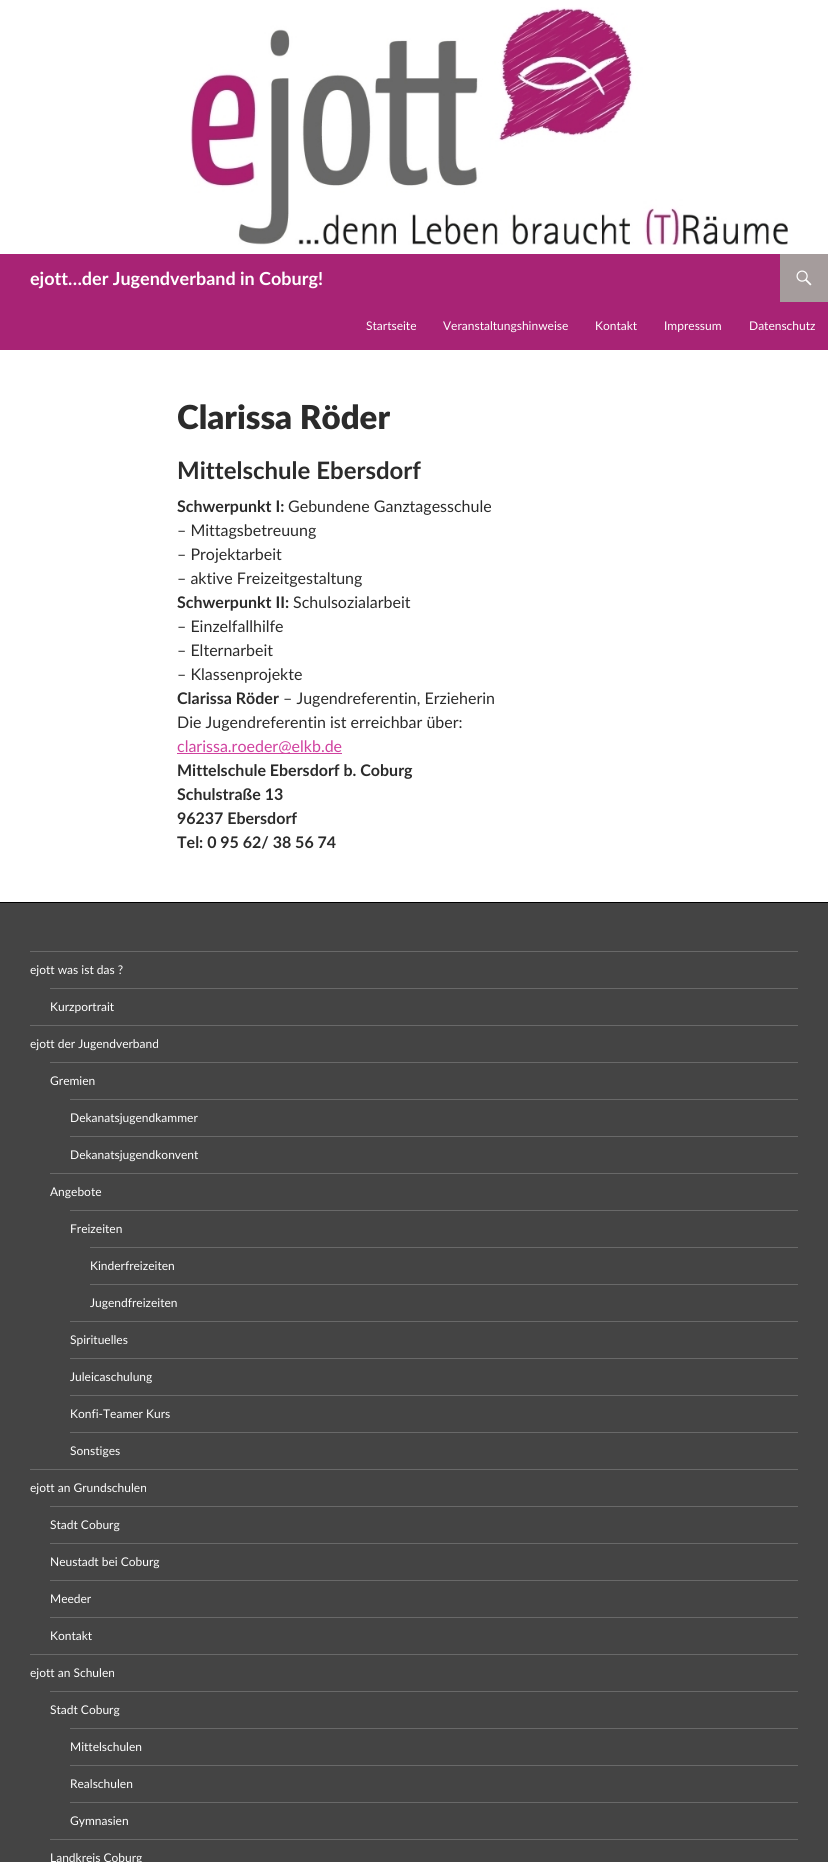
#include <cairo.h>
#include <math.h>
#include <stddef.h>

static cairo_t *c;
static void C(unsigned color){cairo_set_source_rgb(c, (color >> 16) / 255.0, (color >> 8 & 255) / 255.0, (color & 255) / 255.0);}
static void F(const char *family, double size, int italic, int bold){cairo_select_font_face(c, family, italic ? CAIRO_FONT_SLANT_ITALIC : CAIRO_FONT_SLANT_NORMAL,bold ? CAIRO_FONT_WEIGHT_BOLD : CAIRO_FONT_WEIGHT_NORMAL);cairo_set_font_size(c, size);}
static void T(double x, double y, const char *s){cairo_move_to(c, x, y);cairo_show_text(c, s);}
static void R(double x, double y, double w, double h){cairo_rectangle(c, x, y, w, h);cairo_fill(c);}
static void I(const char *path, double x, double y, double w, double h){cairo_surface_t *image = cairo_image_surface_create_from_png(path);cairo_save(c);cairo_set_source_surface(c, image, x, y);cairo_rectangle(c, x, y, w, h);cairo_fill(c);cairo_restore(c);cairo_surface_destroy(image);}
int main(void) {
cairo_surface_t *surface = cairo_image_surface_create(CAIRO_FORMAT_RGB24, 828, 1862);
c = cairo_create(surface);
cairo_font_options_t *options = cairo_font_options_create();
cairo_font_options_set_hint_metrics(options, CAIRO_HINT_METRICS_OFF);
cairo_font_options_set_hint_style(options, CAIRO_HINT_STYLE_NONE);
cairo_set_font_options(c, options);
cairo_set_miter_limit(c, 4);
C(0xffffff);
cairo_paint(c);
I("1.png",190,7,598,238);
C(0xa82375);
R(0,254,828,96);
F("Lato",18,0,1);
C(0xffffff);
T(30,285,"ejott…der Jugendverband in Coburg!");
C(0xa59c9c);
R(780,254,48,48);
I("2.png",796,270,16,16);
F("Lato",12,0,0);
C(0xffffff);
T(366,330,"Startseite");
T(443,330,"Veranstaltungshinweise");
T(595,330,"Kontakt");
T(664,330,"Impressum");
T(749,330,"Datenschutz");
F("Lato ExtraBold",33,0,0);
C(0x2b2b2b);
T(177,429,"Clarissa Röder");
F("Lato",24,0,1);
T(177,479,"Mittelschule Ebersdorf");
F("Lato",16,0,1);
T(177,512,"Schwerpunkt I:");
F("Lato",16,0,0);
T(288,512,"Gebundene Ganztagesschule");
T(177,536,"– Mittagsbetreuung");
T(177,560,"– Projektarbeit");
T(177,584,"– aktive Freizeitgestaltung");
F("Lato",16,0,1);
T(177,608,"Schwerpunkt II:");
F("Lato",16,0,0);
T(293,608,"Schulsozialarbeit");
T(177,632,"– Einzelfallhilfe");
T(177,656,"– Elternarbeit");
T(177,680,"– Klassenprojekte");
F("Lato",16,0,1);
T(177,704,"Clarissa Röder");
F("Lato",16,0,0);
T(283,704,"– Jugendreferentin, Erzieherin");
T(177,728,"Die Jugendreferentin ist erreichbar über:");
C(0xd0429f);
R(177,753,165,1);
T(177,752,"clarissa.roeder@elkb.de");
F("Lato",16,0,1);
C(0x2b2b2b);
T(177,776,"Mittelschule Ebersdorf b. Coburg");
T(177,800,"Schulstraße 13");
T(177,824,"96237 Ebersdorf");
T(177,848,"Tel: 0 95 62/ 38 56 74");
C(0x444444);
R(0,903,828,959);
C(0x000000);
R(0,902,828,1);
C(0x696969);
R(30,951,768,1);
F("Lato",12,0,0);
C(0xffffff);
T(30,974,"ejott was ist das ?");
C(0x696969);
R(50,988,748,1);
C(0xffffff);
T(50,1011,"Kurzportrait");
C(0x696969);
R(30,1025,768,1);
C(0xffffff);
T(30,1048,"ejott der Jugendverband");
C(0x696969);
R(50,1062,748,1);
C(0xffffff);
T(50,1085,"Gremien");
C(0x696969);
R(70,1099,728,1);
C(0xffffff);
T(70,1122,"Dekanatsjugendkammer");
C(0x696969);
R(70,1136,728,1);
C(0xffffff);
T(70,1159,"Dekanatsjugendkonvent");
C(0x696969);
R(50,1173,748,1);
C(0xffffff);
T(50,1196,"Angebote");
C(0x696969);
R(70,1210,728,1);
C(0xffffff);
T(70,1233,"Freizeiten");
C(0x696969);
R(90,1247,708,1);
C(0xffffff);
T(90,1270,"Kinderfreizeiten");
C(0x696969);
R(90,1284,708,1);
C(0xffffff);
T(90,1307,"Jugendfreizeiten");
C(0x696969);
R(70,1321,728,1);
C(0xffffff);
T(70,1344,"Spirituelles");
C(0x696969);
R(70,1358,728,1);
C(0xffffff);
T(70,1381,"Juleicaschulung");
C(0x696969);
R(70,1395,728,1);
C(0xffffff);
T(70,1418,"Konfi-Teamer Kurs");
C(0x696969);
R(70,1432,728,1);
C(0xffffff);
T(70,1455,"Sonstiges");
C(0x696969);
R(30,1469,768,1);
C(0xffffff);
T(30,1492,"ejott an Grundschulen");
C(0x696969);
R(50,1506,748,1);
C(0xffffff);
T(50,1529,"Stadt Coburg");
C(0x696969);
R(50,1543,748,1);
C(0xffffff);
T(50,1566,"Neustadt bei Coburg");
C(0x696969);
R(50,1580,748,1);
C(0xffffff);
T(50,1603,"Meeder");
C(0x696969);
R(50,1617,748,1);
C(0xffffff);
T(50,1640,"Kontakt");
C(0x696969);
R(30,1654,768,1);
C(0xffffff);
T(30,1677,"ejott an Schulen");
C(0x696969);
R(50,1691,748,1);
C(0xffffff);
T(50,1714,"Stadt Coburg");
C(0x696969);
R(70,1728,728,1);
C(0xffffff);
T(70,1751,"Mittelschulen");
C(0x696969);
R(70,1765,728,1);
C(0xffffff);
T(70,1788,"Realschulen");
C(0x696969);
R(70,1802,728,1);
C(0xffffff);
T(70,1825,"Gymnasien");
C(0x696969);
R(50,1839,748,1);
C(0xffffff);
T(50,1862,"Landkreis Coburg");
cairo_surface_write_to_png(surface, "o.png");
cairo_font_options_destroy(options);
cairo_destroy(c);
cairo_surface_destroy(surface);
return 0;
}
